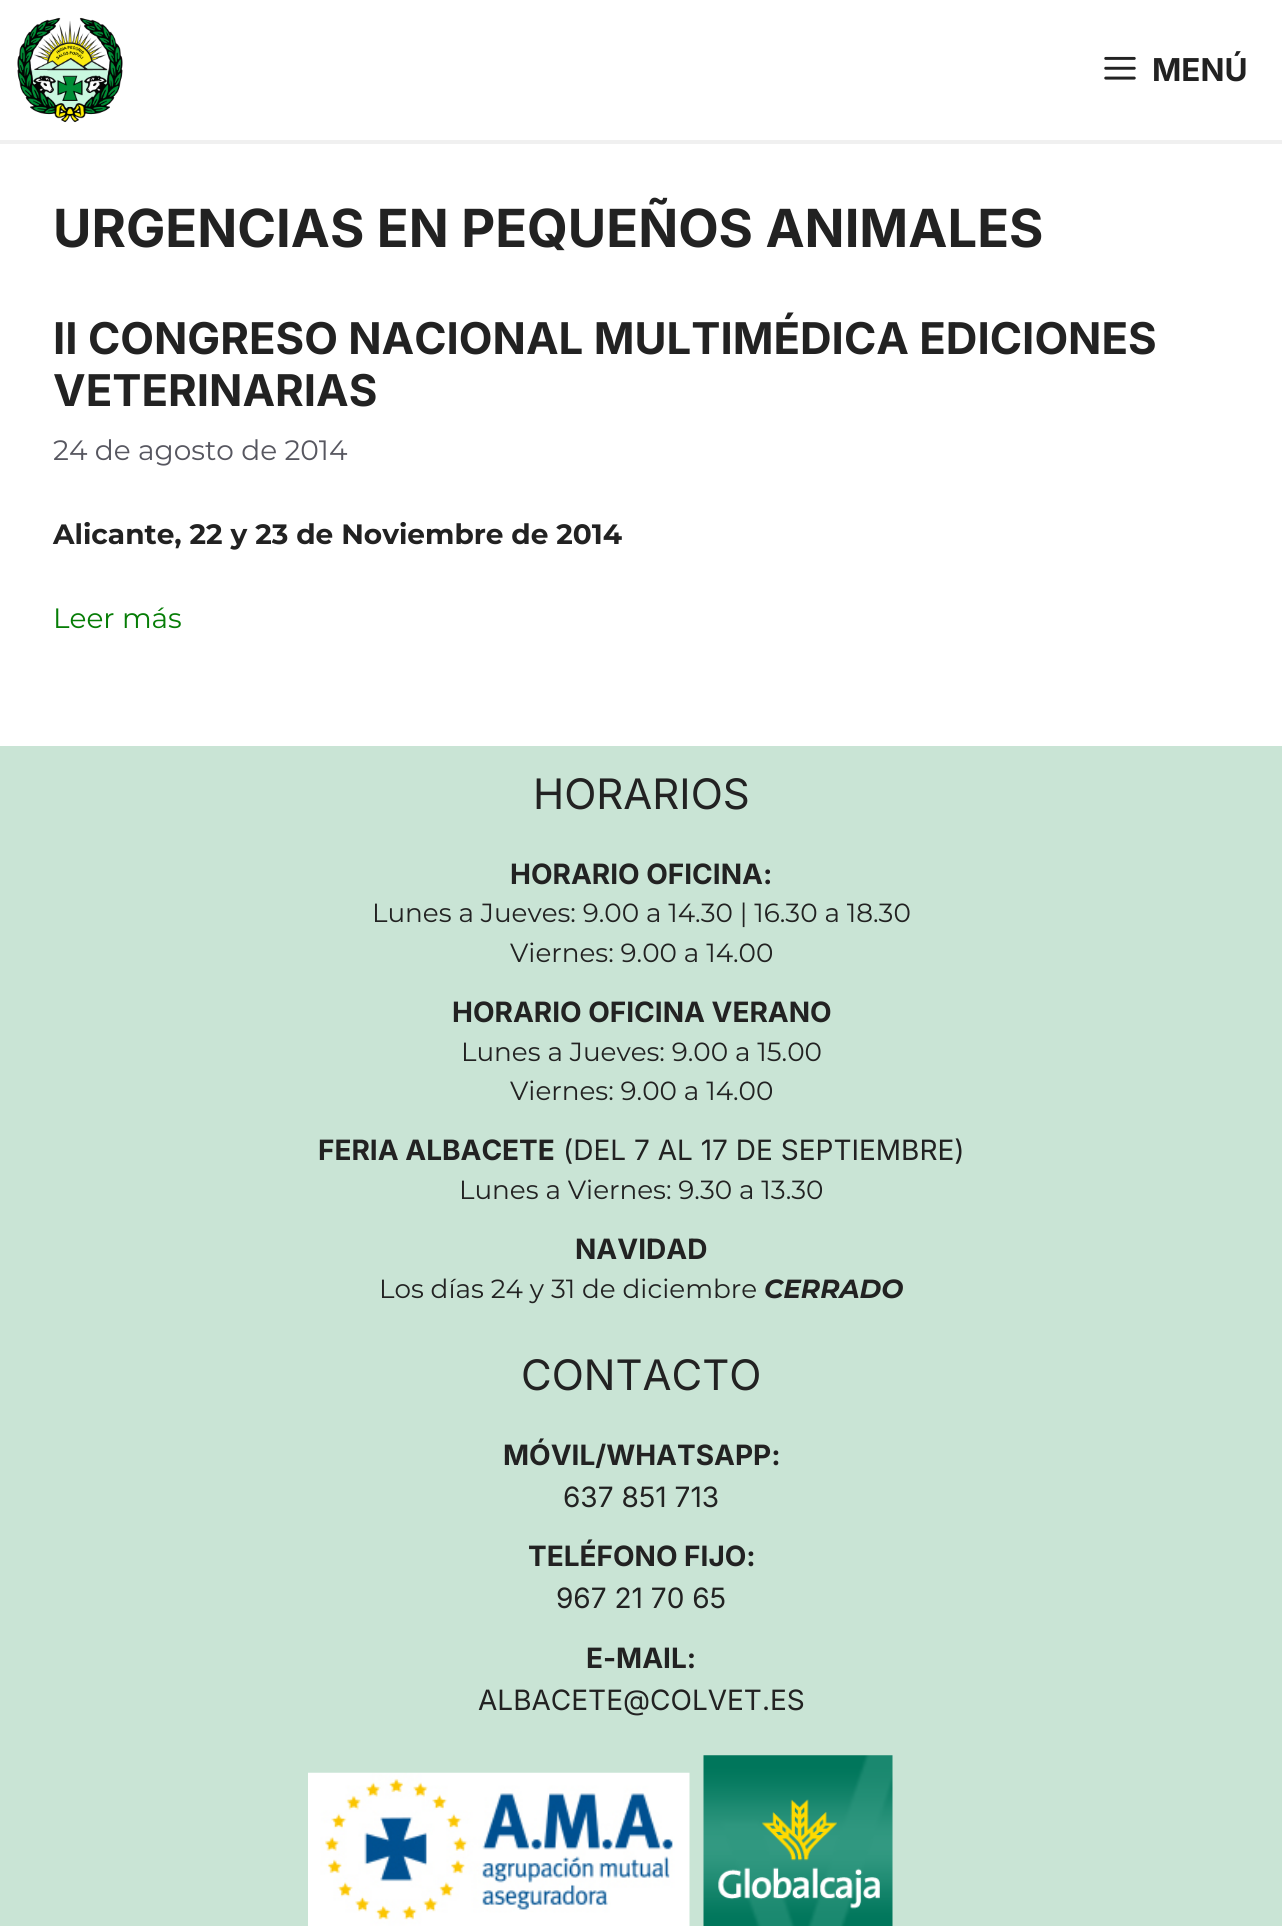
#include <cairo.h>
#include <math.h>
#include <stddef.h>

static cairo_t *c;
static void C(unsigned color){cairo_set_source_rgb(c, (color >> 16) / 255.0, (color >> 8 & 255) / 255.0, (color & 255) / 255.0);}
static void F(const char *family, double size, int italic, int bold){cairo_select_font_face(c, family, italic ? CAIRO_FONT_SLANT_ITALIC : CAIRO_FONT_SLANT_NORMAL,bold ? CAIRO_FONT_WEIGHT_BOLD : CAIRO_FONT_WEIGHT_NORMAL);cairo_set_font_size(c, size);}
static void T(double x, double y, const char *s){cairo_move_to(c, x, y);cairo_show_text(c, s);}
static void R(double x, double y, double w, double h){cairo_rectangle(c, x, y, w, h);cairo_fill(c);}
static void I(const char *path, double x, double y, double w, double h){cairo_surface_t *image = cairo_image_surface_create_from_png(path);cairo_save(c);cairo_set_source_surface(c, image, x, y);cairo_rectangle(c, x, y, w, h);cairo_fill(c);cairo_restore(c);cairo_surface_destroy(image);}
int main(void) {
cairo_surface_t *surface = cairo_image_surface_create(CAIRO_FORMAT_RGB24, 1282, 1926);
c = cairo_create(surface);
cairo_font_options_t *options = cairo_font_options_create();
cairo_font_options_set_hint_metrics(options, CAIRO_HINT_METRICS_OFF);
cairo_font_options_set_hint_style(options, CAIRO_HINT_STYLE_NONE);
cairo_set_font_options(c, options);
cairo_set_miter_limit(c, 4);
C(0xffffff);
cairo_paint(c);
C(0xf0f0f0);
R(0,140,1282,4);
I("1.png",17,17,106,106);
I("2.png",1104,56,32,24);
F("Inter",31.5,0,1);
C(0x222222);
T(1152,81,"MENÚ");
F("Inter",52.5,0,1);
T(53,247,"URGENCIAS EN PEQUEÑOS ANIMALES");
F("Inter",43.75,0,1);
T(53,354,"II CONGRESO NACIONAL MULTIMÉDICA EDICIONES");
T(53,406,"VETERINARIAS");
F("Montserrat",28,0,0);
C(0x575760);
T(53,460,"24 de agosto de 2014");
F("Montserrat",28,0,1);
C(0x222222);
T(53,544,"Alicante, 22 y 23 de Noviembre de 2014");
F("Montserrat",28,0,0);
C(0x067d06);
T(53,628,"Leer más");
C(0xc9e4d5);
R(0,746,1282,1180);
F("Inter",42,0,0);
C(0x222222);
T(533,809,"HORARIOS");
F("Inter",28,0,1);
T(510,884,"HORARIO OFICINA:");
F("Montserrat",26.25,0,0);
T(372,922,"Lunes a Jueves: 9.00 a 14.30 | 16.30 a 18.30");
T(510,962,"Viernes: 9.00 a 14.00");
F("Inter",28,0,1);
T(452,1022,"HORARIO OFICINA VERANO");
F("Montserrat",26.25,0,0);
T(461,1061,"Lunes a Jueves: 9.00 a 15.00");
T(510,1100,"Viernes: 9.00 a 14.00");
F("Inter",28,0,1);
T(318,1160,"FERIA ALBACETE");
F("Inter",28,0,0);
T(563,1160,"(DEL 7 AL 17 DE SEPTIEMBRE)");
F("Montserrat",26.25,0,0);
T(459,1199,"Lunes a Viernes: 9.30 a 13.30");
F("Inter",28,0,1);
T(575,1259,"NAVIDAD");
F("Montserrat",26.25,0,0);
T(379,1298,"Los días 24 y 31 de diciembre");
F("Montserrat",26.25,1,1);
T(764,1298,"CERRADO");
F("Inter",42,0,0);
T(521,1390,"CONTACTO");
F("Inter",28,0,1);
T(503,1465,"MÓVIL/WHATSAPP:");
F("Inter",28,0,0);
T(563,1507,"637 851 713");
F("Inter",28,0,1);
T(528,1566,"TELÉFONO FIJO:");
F("Inter",28,0,0);
T(556,1608,"967 21 70 65");
F("Inter",28,0,1);
T(586,1668,"E-MAIL:");
F("Inter",28,0,0);
T(478,1710,"ALBACETE@COLVET.ES");
I("3.png",308,1772,382,154);
I("4.png",703,1755,190,171);
cairo_surface_write_to_png(surface, "o.png");
cairo_font_options_destroy(options);
cairo_destroy(c);
cairo_surface_destroy(surface);
return 0;
}
